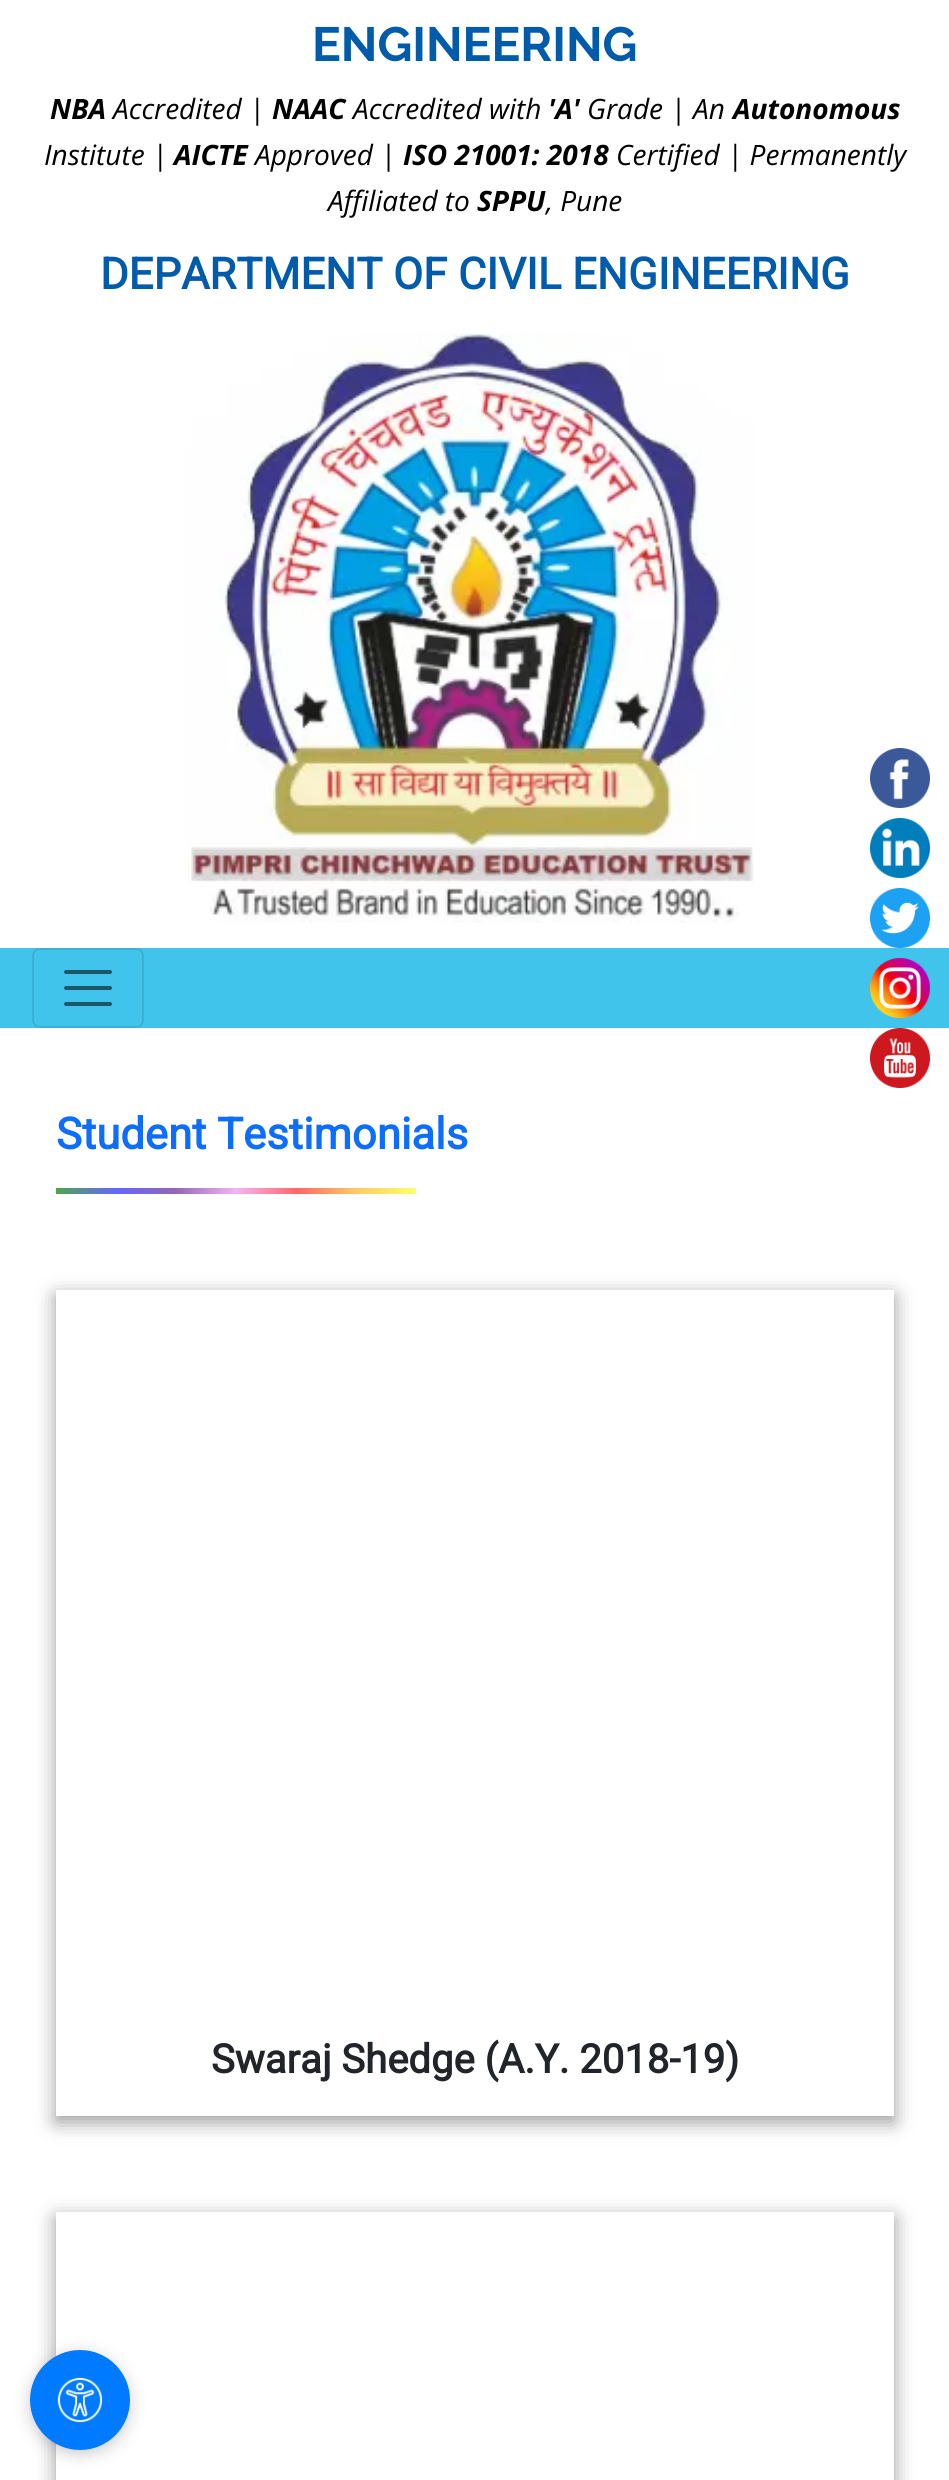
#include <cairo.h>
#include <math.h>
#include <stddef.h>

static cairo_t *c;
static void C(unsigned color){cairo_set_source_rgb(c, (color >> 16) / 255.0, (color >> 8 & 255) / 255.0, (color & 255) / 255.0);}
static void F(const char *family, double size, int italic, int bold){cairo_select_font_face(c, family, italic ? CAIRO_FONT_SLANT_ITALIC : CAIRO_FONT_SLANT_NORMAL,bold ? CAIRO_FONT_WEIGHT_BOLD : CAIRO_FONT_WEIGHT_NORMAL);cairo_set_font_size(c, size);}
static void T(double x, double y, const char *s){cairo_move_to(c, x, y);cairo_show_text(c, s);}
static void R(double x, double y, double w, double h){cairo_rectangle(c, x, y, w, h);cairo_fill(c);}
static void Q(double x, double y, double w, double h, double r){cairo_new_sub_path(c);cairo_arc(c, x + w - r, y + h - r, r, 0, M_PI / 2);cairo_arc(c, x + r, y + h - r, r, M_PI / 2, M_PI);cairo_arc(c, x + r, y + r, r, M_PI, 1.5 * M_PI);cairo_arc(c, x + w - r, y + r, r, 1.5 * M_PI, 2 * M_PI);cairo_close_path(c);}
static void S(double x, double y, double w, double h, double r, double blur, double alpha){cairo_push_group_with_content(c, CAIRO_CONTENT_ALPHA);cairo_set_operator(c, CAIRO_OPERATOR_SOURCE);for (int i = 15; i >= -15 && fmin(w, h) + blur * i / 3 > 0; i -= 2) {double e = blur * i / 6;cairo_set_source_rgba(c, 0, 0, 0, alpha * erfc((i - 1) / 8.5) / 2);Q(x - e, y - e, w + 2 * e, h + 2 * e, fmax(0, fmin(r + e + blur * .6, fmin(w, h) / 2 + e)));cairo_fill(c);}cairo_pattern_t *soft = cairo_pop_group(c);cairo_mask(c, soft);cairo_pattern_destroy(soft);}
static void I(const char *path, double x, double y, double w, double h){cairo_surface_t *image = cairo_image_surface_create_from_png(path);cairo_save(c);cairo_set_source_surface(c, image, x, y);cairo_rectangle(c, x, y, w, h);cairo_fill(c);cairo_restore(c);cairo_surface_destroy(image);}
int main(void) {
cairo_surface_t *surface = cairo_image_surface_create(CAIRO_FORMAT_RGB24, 949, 2480);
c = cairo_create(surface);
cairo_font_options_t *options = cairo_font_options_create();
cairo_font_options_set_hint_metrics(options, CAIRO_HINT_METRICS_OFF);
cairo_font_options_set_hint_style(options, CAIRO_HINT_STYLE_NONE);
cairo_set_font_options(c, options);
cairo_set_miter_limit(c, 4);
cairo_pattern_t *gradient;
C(0xffffff);
cairo_paint(c);
F("Raleway",48,0,1);
C(0x005bab);
T(312,61,"ENGINEERING");
F("Open Sans",28,1,1);
C(0x000000);
T(50,119,"NBA");
F("Open Sans",28,1,0);
T(113,119,"Accredited |");
F("Open Sans",28,1,1);
T(272,119,"NAAC");
F("Open Sans",28,1,0);
T(353,119,"Accredited with");
F("Open Sans",28,1,1);
T(548,119,"'A'");
F("Open Sans",28,1,0);
T(587,119,"Grade | An");
F("Open Sans",28,1,1);
T(733,119,"Autonomous");
F("Open Sans",28,1,0);
T(44,165,"Institute |");
F("Open Sans",28,1,1);
T(174,165,"AICTE");
F("Open Sans",28,1,0);
T(255,165,"Approved |");
F("Open Sans",28,1,1);
T(403,165,"ISO 21001: 2018");
F("Open Sans",28,1,0);
T(616,165,"Certified | Permanently");
T(328,211,"Affiliated to");
F("Open Sans",28,1,1);
T(477,211,"SPPU");
F("Open Sans",28,1,0);
T(546,211,", Pune");
F("Roboto",43.6,0,1);
C(0x005bab);
T(100,289,"DEPARTMENT OF CIVIL ENGINEERING");
I("1.png",185,333,569,590);
I("2.png",870,748,60,60);
I("3.png",870,818,60,60);
I("4.png",870,888,60,60);
C(0x40c4ec);
R(0,948,949,80);
I("5.png",870,958,60,60);
I("6.png",870,1028,60,60);
Q(33,949,110,78,7);
C(0x3ab0d4);
cairo_stroke(c);
cairo_new_path(c);
cairo_move_to(c,66,972);
cairo_line_to(c,110,972);
cairo_move_to(c,66,988);
cairo_line_to(c,110,988);
cairo_move_to(c,66,1004);
cairo_line_to(c,110,1004);
C(0x1d586a);
cairo_set_line_width(c,4);
cairo_set_line_cap(c,CAIRO_LINE_CAP_ROUND);
cairo_stroke(c);
C(0x0d6efd);
T(56,1149,"Student Testimonials");
gradient = cairo_pattern_create_linear(56,1191,416,1191);
cairo_pattern_add_color_stop_rgba(gradient,0,0.302,0.651,0.302,1);
cairo_pattern_add_color_stop_rgba(gradient,.17,0.4,0.4,1,1);
cairo_pattern_add_color_stop_rgba(gradient,.33,0.576,0.4,0.706,1);
cairo_pattern_add_color_stop_rgba(gradient,.5,0.961,0.706,0.961,1);
cairo_pattern_add_color_stop_rgba(gradient,.67,1,0.4,0.4,1);
cairo_pattern_add_color_stop_rgba(gradient,.83,1,0.788,0.4,1);
cairo_pattern_add_color_stop_rgba(gradient,1,1,1,0.4,1);
cairo_set_source(c,gradient);
cairo_pattern_destroy(gradient);
R(56,1188,360,6);
cairo_save(c);
cairo_set_fill_rule(c,CAIRO_FILL_RULE_EVEN_ODD);
cairo_new_path(c);
cairo_move_to(c,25,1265);
cairo_line_to(c,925,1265);
cairo_line_to(c,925,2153);
cairo_line_to(c,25,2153);
cairo_close_path(c);
cairo_move_to(c,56,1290);
cairo_line_to(c,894,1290);
cairo_line_to(c,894,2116);
cairo_line_to(c,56,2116);
cairo_close_path(c);
cairo_clip(c);
C(0x000000);
S(56,1296,838,826,0,10,.4);
cairo_restore(c);
F("Roboto",40,0,1);
C(0x212529);
T(211,2073,"Swaraj Shedge (A.Y. 2018-19)");
cairo_save(c);
cairo_set_fill_rule(c,CAIRO_FILL_RULE_EVEN_ODD);
cairo_new_path(c);
cairo_move_to(c,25,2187);
cairo_line_to(c,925,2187);
cairo_line_to(c,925,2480);
cairo_line_to(c,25,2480);
cairo_close_path(c);
cairo_move_to(c,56,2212);
cairo_line_to(c,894,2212);
cairo_line_to(c,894,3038);
cairo_line_to(c,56,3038);
cairo_close_path(c);
cairo_clip(c);
C(0x000000);
S(56,2218,838,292,0,10,.4);
cairo_restore(c);
C(0x000000);
S(30,2354,100,100,50,8,.2);
C(0x007bff);
cairo_arc(c,80,2400,50,0,2 * M_PI);
cairo_fill(c);
I("7.png",57,2377,46,46);
cairo_surface_write_to_png(surface, "o.png");
cairo_font_options_destroy(options);
cairo_destroy(c);
cairo_surface_destroy(surface);
return 0;
}
